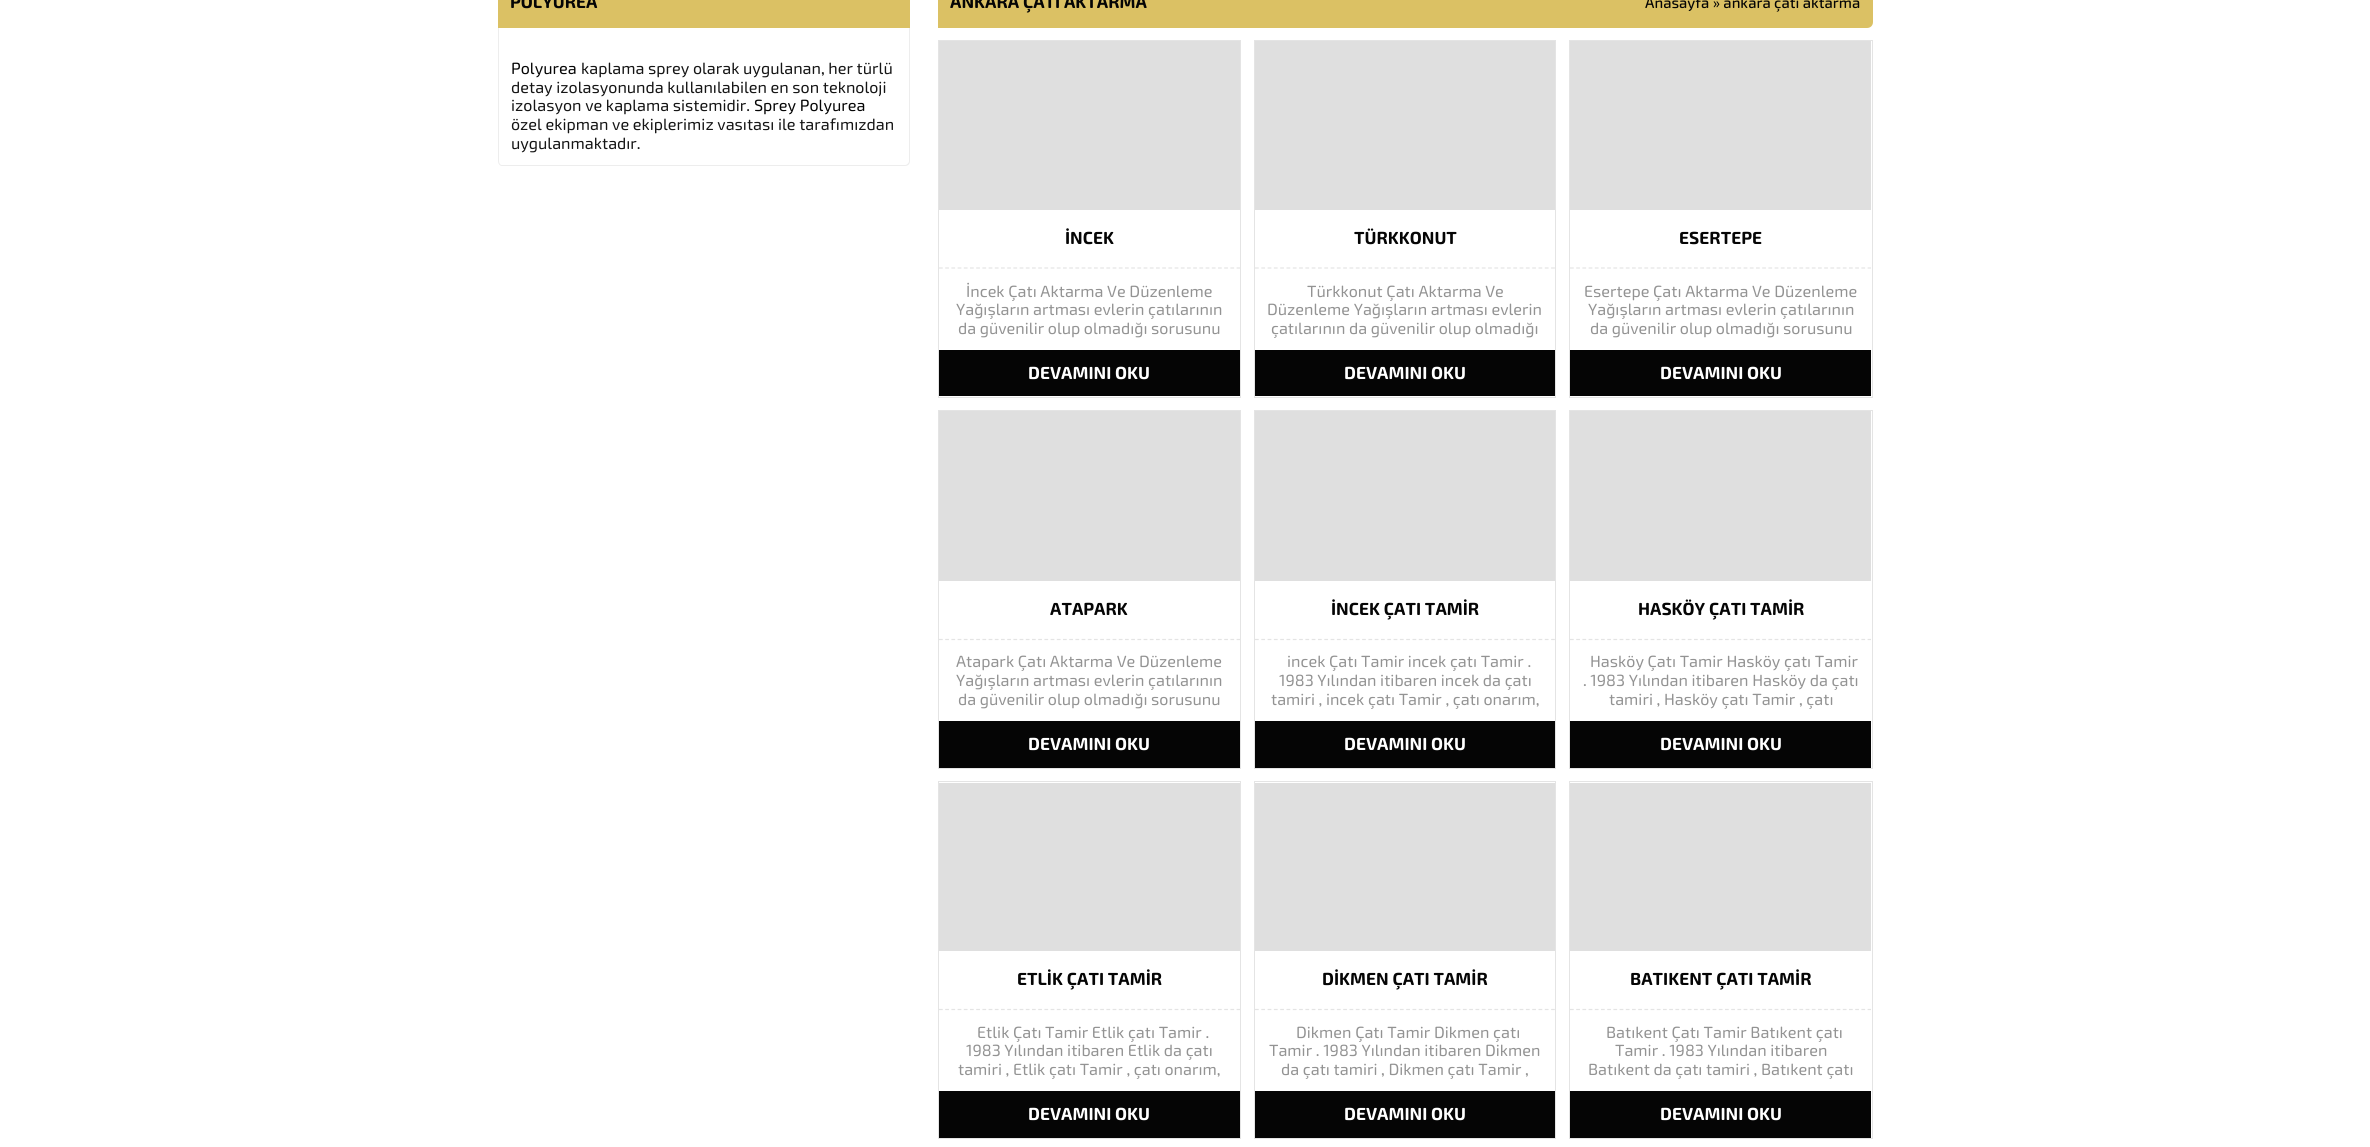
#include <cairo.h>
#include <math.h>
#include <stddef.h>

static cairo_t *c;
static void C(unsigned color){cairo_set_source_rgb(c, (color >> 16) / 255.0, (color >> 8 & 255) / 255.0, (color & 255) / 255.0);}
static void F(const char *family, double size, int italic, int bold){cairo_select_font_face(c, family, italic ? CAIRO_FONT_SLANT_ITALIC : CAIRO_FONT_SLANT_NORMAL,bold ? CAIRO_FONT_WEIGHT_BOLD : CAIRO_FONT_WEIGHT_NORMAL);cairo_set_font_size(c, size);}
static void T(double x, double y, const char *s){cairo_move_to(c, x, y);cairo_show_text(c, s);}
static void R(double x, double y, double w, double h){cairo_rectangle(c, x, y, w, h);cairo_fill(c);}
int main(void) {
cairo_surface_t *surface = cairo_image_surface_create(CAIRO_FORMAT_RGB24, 2370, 1147);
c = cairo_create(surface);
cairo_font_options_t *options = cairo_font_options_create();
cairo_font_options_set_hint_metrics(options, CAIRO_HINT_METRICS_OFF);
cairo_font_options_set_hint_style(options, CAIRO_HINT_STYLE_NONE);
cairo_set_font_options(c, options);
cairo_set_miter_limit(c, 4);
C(0xffffff);
cairo_paint(c);
C(0xdbc164);
R(498,0,412,28);
F("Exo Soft",17.5,0,1);
C(0x050505);
T(510,8,"POLYUREA");
C(0xededed);
cairo_set_fill_rule(c,CAIRO_FILL_RULE_EVEN_ODD);
cairo_new_path(c);
cairo_move_to(c,498,28);
cairo_line_to(c,910,28);
cairo_line_to(c,910,161);
cairo_curve_to(c,910,164,908,166,905,166);
cairo_line_to(c,502,166);
cairo_curve_to(c,500,166,498,164,498,161);
cairo_close_path(c);
cairo_move_to(c,499,28);
cairo_line_to(c,909,28);
cairo_line_to(c,909,161);
cairo_curve_to(c,909,163,907,165,905,165);
cairo_line_to(c,502,165);
cairo_curve_to(c,500,165,499,163,499,161);
cairo_close_path(c);
cairo_fill(c);
F("Exo Soft",16.25,0,0);
C(0x050505);
T(511,74,"Polyurea");
C(0x151515);
T(581,74,"kaplama sprey olarak uygulanan, her türlü");
T(511,93,"detay izolasyonunda kullanılabilen en son teknoloji");
T(511,111,"izolasyon ve kaplama sistemidir.");
C(0x050505);
T(754,111,"Sprey Polyurea");
C(0x151515);
T(511,130,"özel ekipman ve ekiplerimiz vasıtası ile tarafımızdan");
T(511,149,"uygulanmaktadır.");
C(0xdbc164);
cairo_new_path(c);
cairo_move_to(c,944,-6);
cairo_line_to(c,1873,-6);
cairo_line_to(c,1873,22);
cairo_curve_to(c,1873,25.5,1870.5,28,1867,28);
cairo_line_to(c,938,28);
cairo_line_to(c,938,0);
cairo_curve_to(c,938,-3.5,940.5,-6,944,-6);
cairo_close_path(c);
cairo_fill(c);
F("Exo Soft",17.5,0,1);
C(0x050505);
T(950,8,"ANKARA ÇATI AKTARMA");
F("Exo Soft Medium",15,0,0);
T(1645,8,"Anasayfa » ankara çatı aktarma");
cairo_rectangle(c,938.5,40.5,302,357);
C(0xe4e4e4);
cairo_set_line_width(c,1);
cairo_stroke(c);
C(0xdfdfdf);
R(939,41,301,169);
cairo_new_path(c);
cairo_move_to(c,939,268);
cairo_line_to(c,1240,268);
C(0xe4e4e4);
cairo_set_line_width(c,1.2);
cairo_set_dash(c,(double[]){3.75,2.45},2,0);
cairo_stroke(c);
F("Exo Soft",17.5,0,1);
C(0x050505);
T(1065,244,"İNCEK");
F("Exo Soft",16.25,0,0);
C(0x939393);
T(966,297,"İncek Çatı Aktarma Ve Düzenleme");
T(956,315,"Yağışların artması evlerin çatılarının");
T(958,334,"da güvenilir olup olmadığı sorusunu");
C(0x050505);
R(939,350,301,46);
F("Exo Soft",17.5,0,1);
C(0xffffff);
T(1028,379,"DEVAMINI OKU");
cairo_rectangle(c,1254.5,40.5,301,357);
C(0xe4e4e4);
cairo_set_line_width(c,1);
cairo_set_dash(c,NULL,0,0);
cairo_stroke(c);
C(0xdfdfdf);
R(1255,41,300,169);
cairo_new_path(c);
cairo_move_to(c,1255,268);
cairo_line_to(c,1555,268);
C(0xe4e4e4);
cairo_set_line_width(c,1.2);
cairo_set_dash(c,(double[]){3.75,2.55},2,0);
cairo_stroke(c);
C(0x050505);
T(1354,244,"TÜRKKONUT");
F("Exo Soft",16.25,0,0);
C(0x939393);
T(1307,297,"Türkkonut Çatı Aktarma Ve");
T(1267,315,"Düzenleme Yağışların artması evlerin");
T(1271,334,"çatılarının da güvenilir olup olmadığı");
C(0x050505);
R(1255,350,300,46);
F("Exo Soft",17.5,0,1);
C(0xffffff);
T(1344,379,"DEVAMINI OKU");
cairo_rectangle(c,1569.5,40.5,303,357);
C(0xe4e4e4);
cairo_set_line_width(c,1);
cairo_set_dash(c,NULL,0,0);
cairo_stroke(c);
C(0xdfdfdf);
R(1570,41,301,169);
cairo_new_path(c);
cairo_move_to(c,1570,268);
cairo_line_to(c,1871,268);
C(0xe4e4e4);
cairo_set_line_width(c,1.2);
cairo_set_dash(c,(double[]){3.75,2.45},2,0);
cairo_stroke(c);
C(0x050505);
T(1679,244,"ESERTEPE");
F("Exo Soft",16.25,0,0);
C(0x939393);
T(1584,297,"Esertepe Çatı Aktarma Ve Düzenleme");
T(1588,315,"Yağışların artması evlerin çatılarının");
T(1590,334,"da güvenilir olup olmadığı sorusunu");
C(0x050505);
R(1570,350,301,46);
F("Exo Soft",17.5,0,1);
C(0xffffff);
T(1660,379,"DEVAMINI OKU");
cairo_rectangle(c,938.5,410.5,302,358);
C(0xe4e4e4);
cairo_set_line_width(c,1);
cairo_set_dash(c,NULL,0,0);
cairo_stroke(c);
C(0xdfdfdf);
R(939,411,301,170);
cairo_new_path(c);
cairo_move_to(c,939,639.5);
cairo_line_to(c,1240,639.5);
C(0xe4e4e4);
cairo_set_line_width(c,1.2);
cairo_set_dash(c,(double[]){3.75,2.45},2,0);
cairo_stroke(c);
C(0x050505);
T(1050,615,"ATAPARK");
F("Exo Soft",16.25,0,0);
C(0x939393);
T(956,667,"Atapark Çatı Aktarma Ve Düzenleme");
T(956,686,"Yağışların artması evlerin çatılarının");
T(958,705,"da güvenilir olup olmadığı sorusunu");
C(0x050505);
R(939,721,301,47);
F("Exo Soft",17.5,0,1);
C(0xffffff);
T(1028,750,"DEVAMINI OKU");
cairo_rectangle(c,1254.5,410.5,301,358);
C(0xe4e4e4);
cairo_set_line_width(c,1);
cairo_set_dash(c,NULL,0,0);
cairo_stroke(c);
C(0xdfdfdf);
R(1255,411,300,170);
cairo_new_path(c);
cairo_move_to(c,1255,639.5);
cairo_line_to(c,1555,639.5);
C(0xe4e4e4);
cairo_set_line_width(c,1.2);
cairo_set_dash(c,(double[]){3.75,2.55},2,0);
cairo_stroke(c);
C(0x050505);
T(1331,615,"İNCEK ÇATI TAMİR");
F("Exo Soft",16.25,0,0);
C(0x939393);
T(1287,667,"incek Çatı Tamir incek çatı Tamir .");
T(1279,686,"1983 Yılından itibaren incek da çatı");
T(1271,705,"tamiri , incek çatı Tamir , çatı onarım,");
C(0x050505);
R(1255,721,300,47);
F("Exo Soft",17.5,0,1);
C(0xffffff);
T(1344,750,"DEVAMINI OKU");
cairo_rectangle(c,1569.5,410.5,303,358);
C(0xe4e4e4);
cairo_set_line_width(c,1);
cairo_set_dash(c,NULL,0,0);
cairo_stroke(c);
C(0xdfdfdf);
R(1570,411,301,170);
cairo_new_path(c);
cairo_move_to(c,1570,639.5);
cairo_line_to(c,1871,639.5);
C(0xe4e4e4);
cairo_set_line_width(c,1.2);
cairo_set_dash(c,(double[]){3.75,2.45},2,0);
cairo_stroke(c);
C(0x050505);
T(1638,615,"HASKÖY ÇATI TAMİR");
F("Exo Soft",16.25,0,0);
C(0x939393);
T(1590,667,"Hasköy Çatı Tamir Hasköy çatı Tamir");
T(1583,686,". 1983 Yılından itibaren Hasköy da çatı");
T(1609,705,"tamiri , Hasköy çatı Tamir , çatı");
C(0x050505);
R(1570,721,301,47);
F("Exo Soft",17.5,0,1);
C(0xffffff);
T(1660,750,"DEVAMINI OKU");
cairo_rectangle(c,938.5,781.5,302,357);
C(0xe4e4e4);
cairo_set_line_width(c,1);
cairo_set_dash(c,NULL,0,0);
cairo_stroke(c);
C(0xdfdfdf);
R(939,783,301,168);
cairo_new_path(c);
cairo_move_to(c,939,1009.5);
cairo_line_to(c,1240,1009.5);
C(0xe4e4e4);
cairo_set_line_width(c,1.2);
cairo_set_dash(c,(double[]){3.75,2.45},2,0);
cairo_stroke(c);
C(0x050505);
T(1017,985,"ETLİK ÇATI TAMİR");
F("Exo Soft",16.25,0,0);
C(0x939393);
T(977,1038,"Etlik Çatı Tamir Etlik çatı Tamir .");
T(966,1056,"1983 Yılından itibaren Etlik da çatı");
T(958,1075,"tamiri , Etlik çatı Tamir , çatı onarım,");
C(0x050505);
R(939,1091,301,47);
F("Exo Soft",17.5,0,1);
C(0xffffff);
T(1028,1120,"DEVAMINI OKU");
cairo_rectangle(c,1254.5,781.5,301,357);
C(0xe4e4e4);
cairo_set_line_width(c,1);
cairo_set_dash(c,NULL,0,0);
cairo_stroke(c);
C(0xdfdfdf);
R(1255,783,300,168);
cairo_new_path(c);
cairo_move_to(c,1255,1009.5);
cairo_line_to(c,1555,1009.5);
C(0xe4e4e4);
cairo_set_line_width(c,1.2);
cairo_set_dash(c,(double[]){3.75,2.55},2,0);
cairo_stroke(c);
C(0x050505);
T(1322,985,"DİKMEN ÇATI TAMİR");
F("Exo Soft",16.25,0,0);
C(0x939393);
T(1296,1038,"Dikmen Çatı Tamir Dikmen çatı");
T(1269,1056,"Tamir . 1983 Yılından itibaren Dikmen");
T(1281,1075,"da çatı tamiri , Dikmen çatı Tamir ,");
C(0x050505);
R(1255,1091,300,47);
F("Exo Soft",17.5,0,1);
C(0xffffff);
T(1344,1120,"DEVAMINI OKU");
cairo_rectangle(c,1569.5,781.5,303,357);
C(0xe4e4e4);
cairo_set_line_width(c,1);
cairo_set_dash(c,NULL,0,0);
cairo_stroke(c);
C(0xdfdfdf);
R(1570,783,301,168);
cairo_new_path(c);
cairo_move_to(c,1570,1009.5);
cairo_line_to(c,1871,1009.5);
C(0xe4e4e4);
cairo_set_line_width(c,1.2);
cairo_set_dash(c,(double[]){3.75,2.45},2,0);
cairo_stroke(c);
C(0x050505);
T(1630,985,"BATIKENT ÇATI TAMİR");
F("Exo Soft",16.25,0,0);
C(0x939393);
T(1606,1038,"Batıkent Çatı Tamir Batıkent çatı");
T(1615,1056,"Tamir . 1983 Yılından itibaren");
T(1588,1075,"Batıkent da çatı tamiri , Batıkent çatı");
C(0x050505);
R(1570,1091,301,47);
F("Exo Soft",17.5,0,1);
C(0xffffff);
T(1660,1120,"DEVAMINI OKU");
cairo_surface_write_to_png(surface, "o.png");
cairo_font_options_destroy(options);
cairo_destroy(c);
cairo_surface_destroy(surface);
return 0;
}
